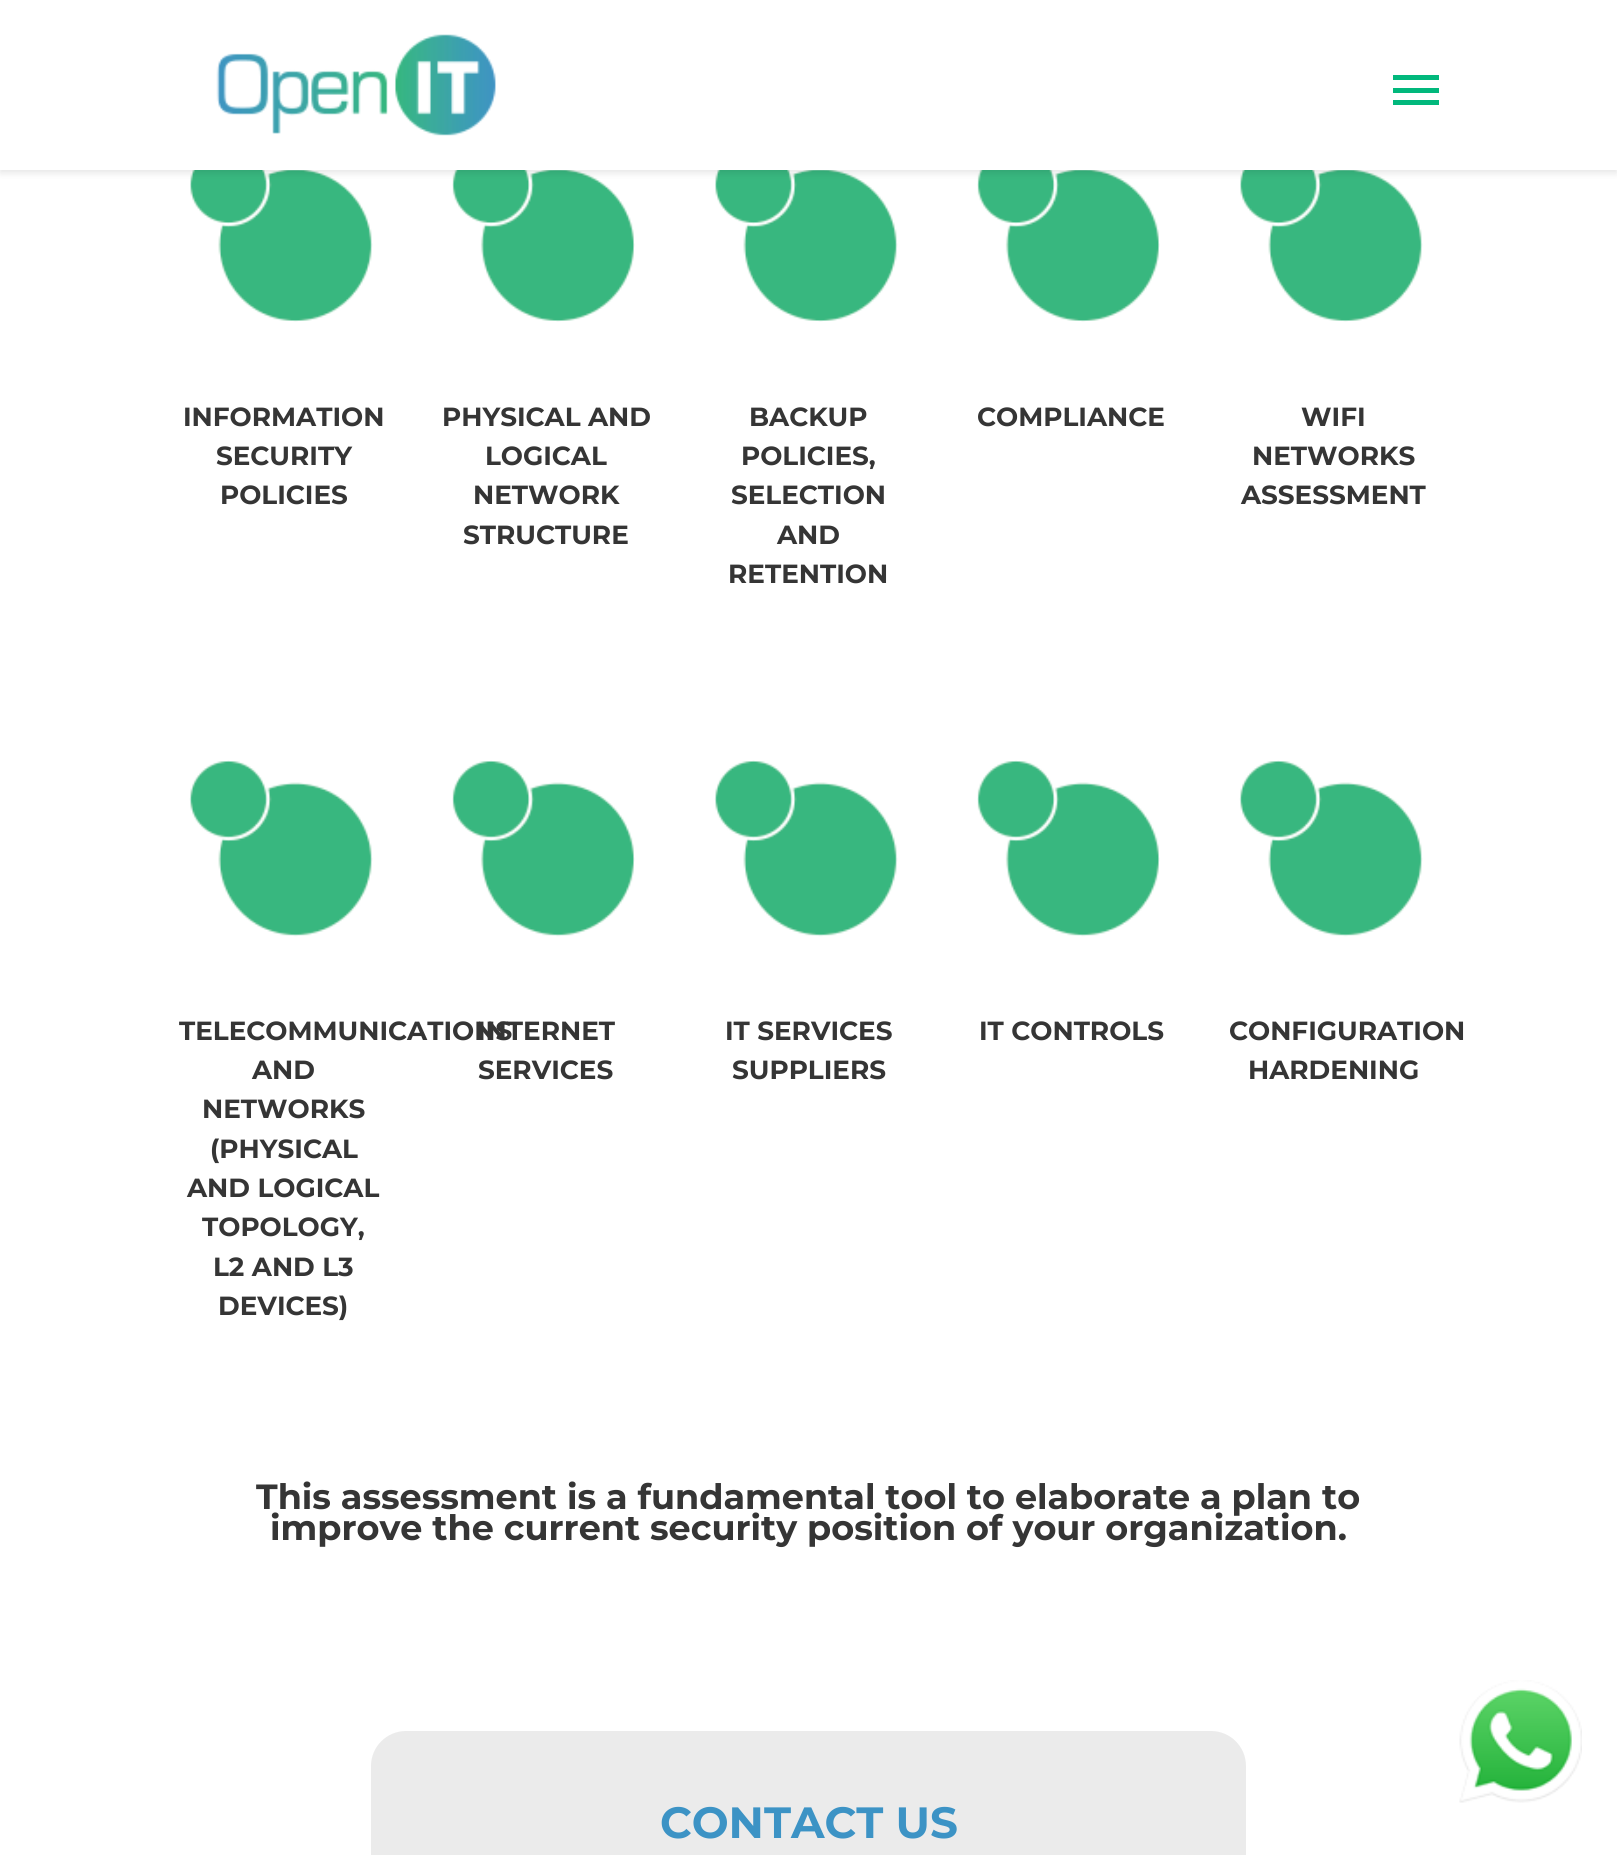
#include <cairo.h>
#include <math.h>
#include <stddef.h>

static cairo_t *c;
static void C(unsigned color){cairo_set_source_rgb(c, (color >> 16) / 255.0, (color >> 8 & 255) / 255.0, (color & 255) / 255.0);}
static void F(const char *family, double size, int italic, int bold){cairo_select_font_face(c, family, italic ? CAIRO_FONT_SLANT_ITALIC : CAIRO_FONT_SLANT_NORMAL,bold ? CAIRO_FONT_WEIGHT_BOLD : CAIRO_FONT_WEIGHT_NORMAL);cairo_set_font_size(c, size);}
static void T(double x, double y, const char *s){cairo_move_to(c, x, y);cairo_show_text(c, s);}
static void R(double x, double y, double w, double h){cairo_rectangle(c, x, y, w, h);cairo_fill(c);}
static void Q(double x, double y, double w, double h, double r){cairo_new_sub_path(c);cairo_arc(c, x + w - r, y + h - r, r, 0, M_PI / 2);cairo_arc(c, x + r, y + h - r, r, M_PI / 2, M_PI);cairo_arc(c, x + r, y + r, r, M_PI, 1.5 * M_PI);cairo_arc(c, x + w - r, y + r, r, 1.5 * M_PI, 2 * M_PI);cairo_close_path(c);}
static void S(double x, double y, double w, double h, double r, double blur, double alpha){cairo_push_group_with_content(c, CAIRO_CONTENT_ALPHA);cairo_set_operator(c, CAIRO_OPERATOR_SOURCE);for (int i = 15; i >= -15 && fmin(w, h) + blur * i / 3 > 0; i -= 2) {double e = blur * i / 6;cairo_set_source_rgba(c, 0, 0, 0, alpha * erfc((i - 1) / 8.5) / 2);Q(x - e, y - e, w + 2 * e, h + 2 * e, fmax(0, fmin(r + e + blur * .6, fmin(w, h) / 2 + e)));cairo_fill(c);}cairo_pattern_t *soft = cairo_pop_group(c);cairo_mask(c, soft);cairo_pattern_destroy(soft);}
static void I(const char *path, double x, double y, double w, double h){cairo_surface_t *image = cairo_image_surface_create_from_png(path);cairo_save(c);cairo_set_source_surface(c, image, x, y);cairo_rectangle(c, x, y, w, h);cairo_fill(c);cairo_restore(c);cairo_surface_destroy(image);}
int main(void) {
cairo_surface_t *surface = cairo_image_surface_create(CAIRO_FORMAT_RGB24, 1617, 1855);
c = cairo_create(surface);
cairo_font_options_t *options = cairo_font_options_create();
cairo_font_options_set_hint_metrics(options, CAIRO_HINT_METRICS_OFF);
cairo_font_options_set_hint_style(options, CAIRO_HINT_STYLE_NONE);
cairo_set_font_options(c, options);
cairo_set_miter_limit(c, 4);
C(0xffffff);
cairo_paint(c);
I("2.png",190,170,183,152);
I("3.png",452,170,183,152);
I("4.png",715,170,183,152);
I("3.png",977,170,183,152);
I("5.png",1240,170,183,152);
C(0x000000);
S(0,4,1617,169,0,3.5,.1);
C(0xffffff);
R(0,0,1617,170);
I("1.png",216,34,280,102);
C(0x01b87c);
R(1393,75,46,5);
R(1393,88,46,5);
R(1393,100,46,5);
F("Montserrat",26.25,0,1);
C(0x353535);
T(183,426,"INFORMATION");
T(216,465,"SECURITY");
T(220,504,"POLICIES");
T(442,426,"PHYSICAL AND");
T(485,465,"LOGICAL");
T(473,504,"NETWORK");
T(463,544,"STRUCTURE");
T(749,426,"BACKUP");
T(741,465,"POLICIES,");
T(731,504,"SELECTION");
T(777,544,"AND");
T(728,583,"RETENTION");
T(977,426,"COMPLIANCE");
T(1301,426,"WIFI");
T(1252,465,"NETWORKS");
T(1241,504,"ASSESSMENT");
I("6.png",189,760,184,177);
T(179,1040,"TELECOMMUNICATIONS");
T(252,1079,"AND");
T(202,1118,"NETWORKS");
T(210,1158,"(PHYSICAL");
T(187,1197,"AND LOGICAL");
T(202,1236,"TOPOLOGY,");
T(213,1276,"L2 AND L3");
T(218,1315,"DEVICES)");
I("7.png",452,760,183,177);
T(477,1040,"INTERNET");
T(478,1079,"SERVICES");
I("8.png",714,760,184,177);
T(725,1040,"IT SERVICES");
T(732,1079,"SUPPLIERS");
I("7.png",977,760,183,177);
T(979,1040,"IT CONTROLS");
I("9.png",1239,760,184,177);
T(1229,1040,"CONFIGURATION");
T(1248,1079,"HARDENING");
F("Montserrat",35,0,1);
T(256,1509,"This assessment is a fundamental tool to elaborate a plan to");
T(270,1540,"improve the current security position of your organization.");
C(0xebebeb);
Q(371,1731,875,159,35);
cairo_fill(c);
F("Montserrat",43.75,0,1);
C(0x3c93c5);
T(660,1838,"CONTACT US");
I("10.png",1459,1680,123,123);
cairo_surface_write_to_png(surface, "o.png");
cairo_font_options_destroy(options);
cairo_destroy(c);
cairo_surface_destroy(surface);
return 0;
}
